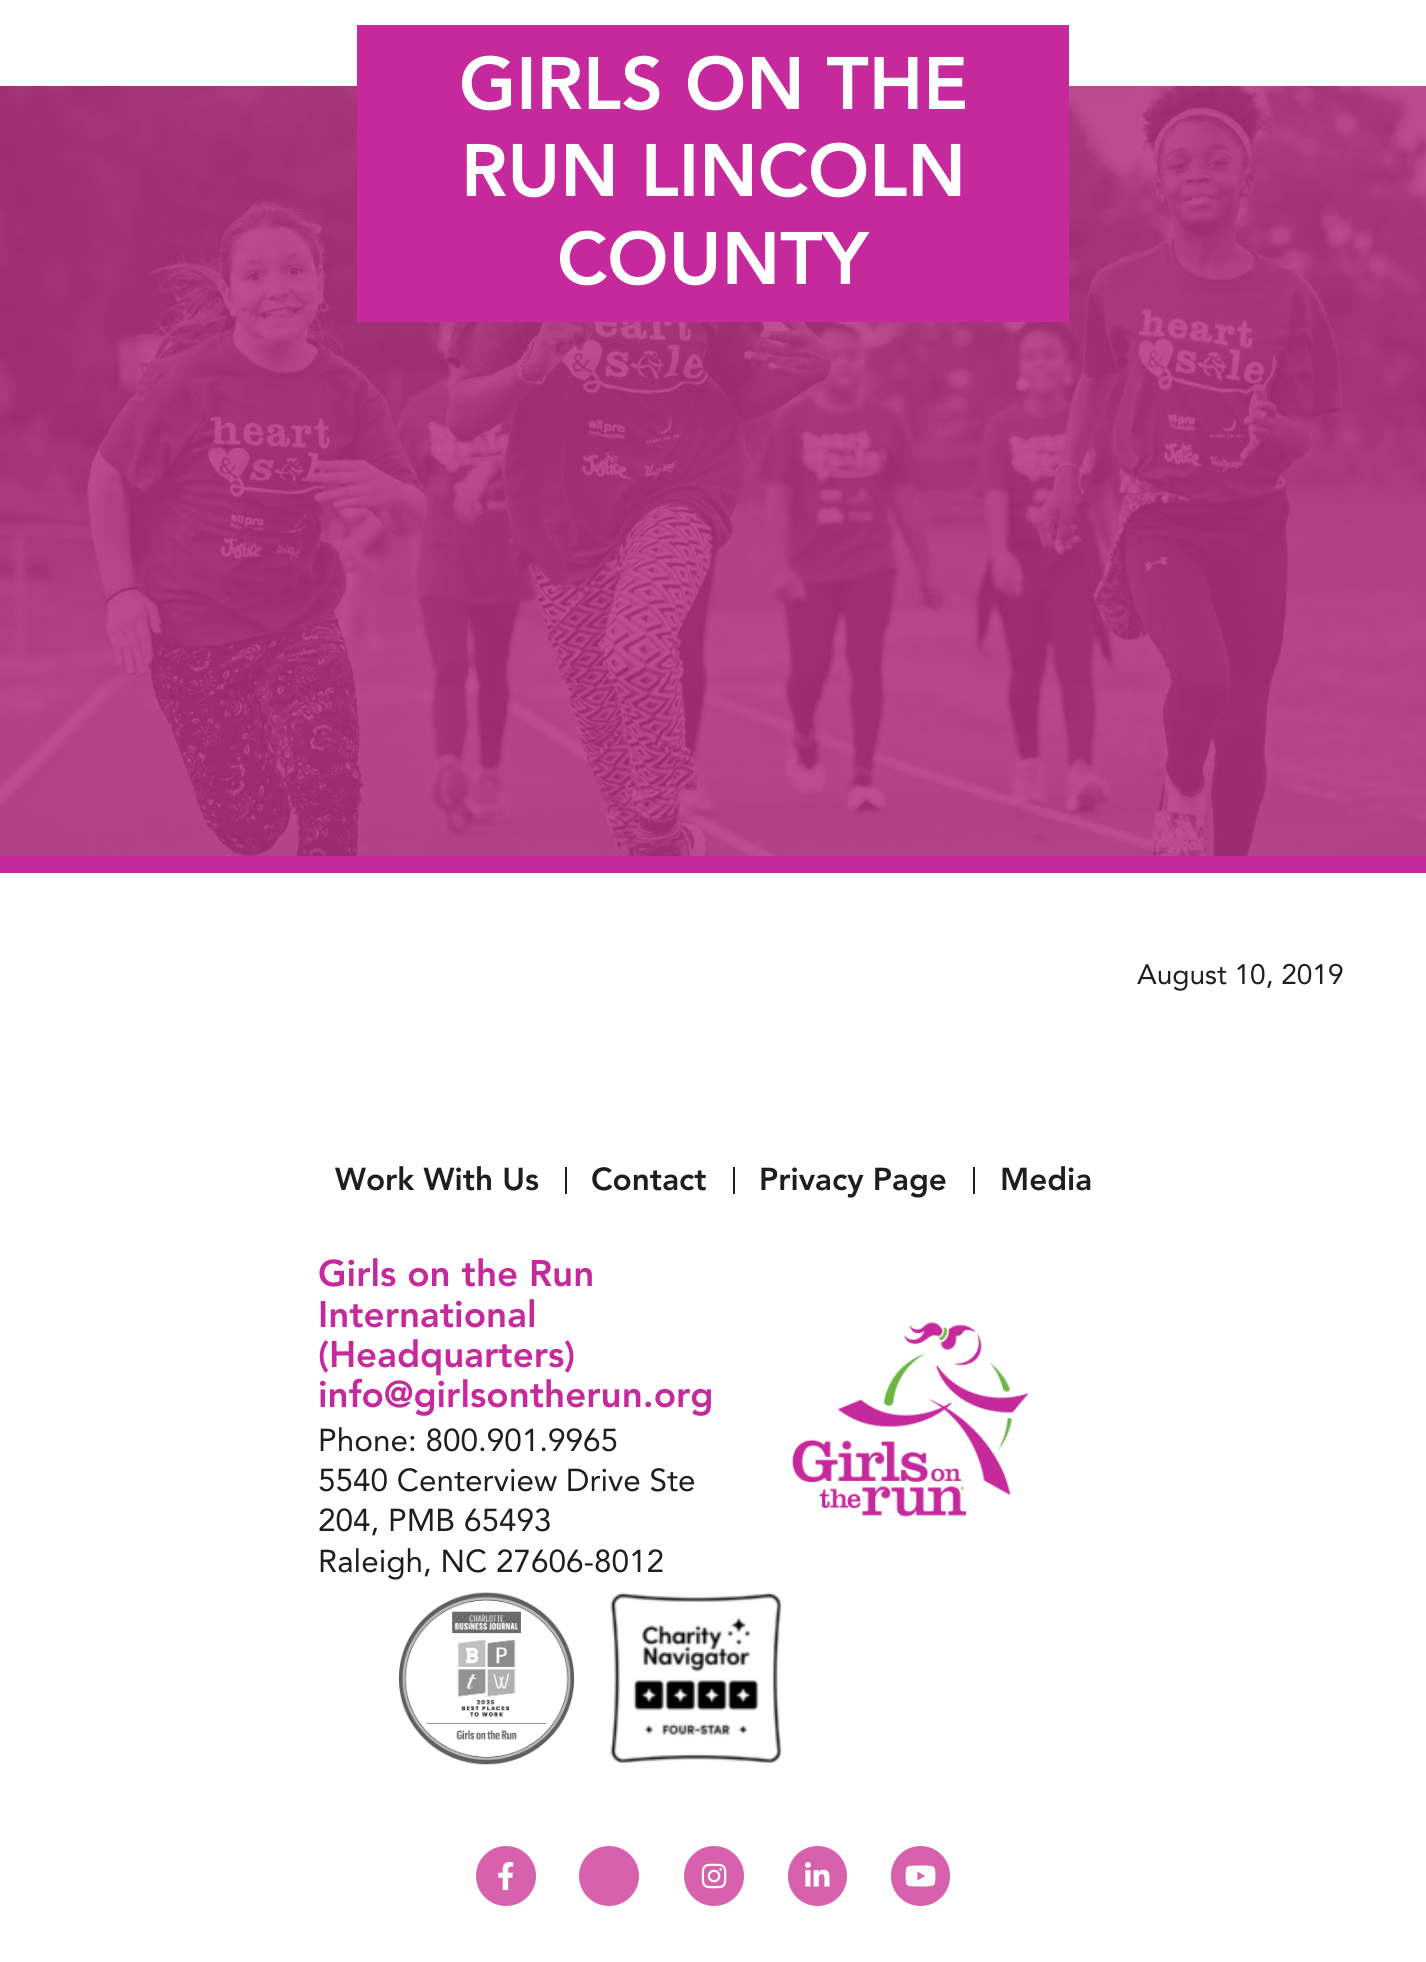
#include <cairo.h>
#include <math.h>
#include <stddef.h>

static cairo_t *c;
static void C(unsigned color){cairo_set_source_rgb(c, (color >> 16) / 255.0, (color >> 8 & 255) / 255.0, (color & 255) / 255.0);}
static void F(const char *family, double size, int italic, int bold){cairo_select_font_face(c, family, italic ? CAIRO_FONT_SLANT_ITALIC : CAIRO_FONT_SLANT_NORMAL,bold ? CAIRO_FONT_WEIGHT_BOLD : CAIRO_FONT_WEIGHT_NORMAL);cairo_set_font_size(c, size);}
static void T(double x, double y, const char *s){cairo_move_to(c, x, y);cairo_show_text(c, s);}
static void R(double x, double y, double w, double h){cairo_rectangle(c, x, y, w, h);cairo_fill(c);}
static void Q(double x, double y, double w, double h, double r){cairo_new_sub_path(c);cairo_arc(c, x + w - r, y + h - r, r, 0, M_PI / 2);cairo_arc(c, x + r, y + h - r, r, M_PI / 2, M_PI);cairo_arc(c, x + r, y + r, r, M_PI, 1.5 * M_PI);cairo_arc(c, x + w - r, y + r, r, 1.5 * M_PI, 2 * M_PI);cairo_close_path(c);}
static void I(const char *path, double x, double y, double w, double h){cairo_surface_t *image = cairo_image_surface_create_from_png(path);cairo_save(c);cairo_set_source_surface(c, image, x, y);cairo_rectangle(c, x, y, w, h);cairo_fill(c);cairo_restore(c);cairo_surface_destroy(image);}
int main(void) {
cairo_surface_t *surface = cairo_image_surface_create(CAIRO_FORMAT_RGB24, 1426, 1962);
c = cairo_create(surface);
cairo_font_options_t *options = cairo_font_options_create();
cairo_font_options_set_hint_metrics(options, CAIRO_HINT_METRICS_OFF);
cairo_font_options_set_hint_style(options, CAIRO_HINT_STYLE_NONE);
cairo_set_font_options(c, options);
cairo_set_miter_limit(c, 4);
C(0xffffff);
cairo_paint(c);
C(0xc5299b);
R(0,856,1426,17);
I("1.png",0,86,1426,770);
R(357,25,712,297);
F("Avenir Black",73.5,0,0);
C(0xffffff);
T(459,109,"GIRLS ON THE");
T(461,196,"RUN LINCOLN");
T(557,284,"COUNTY");
F("Avenir",28,0,0);
C(0x1e1e1e);
T(1137,984,"August 10, 2019");
F("Avenir Black",31.5,0,0);
T(335,1190,"Work With Us");
R(565,1167,2,27);
T(591,1190,"Contact");
R(733,1167,2,27);
T(759,1190,"Privacy Page");
R(973,1167,2,27);
T(1000,1190,"Media");
F("Avenir Black",36.75,0,0);
C(0xc5299b);
T(318,1286,"Girls on the Run");
T(318,1327,"International");
T(318,1367,"(Headquarters)");
T(318,1407,"info@girlsontherun.org");
F("Avenir",31.5,0,0);
C(0x1e1e1e);
T(318,1451,"Phone: 800.901.9965");
T(318,1491,"5540 Centerview Drive Ste");
T(318,1531,"204, PMB 65493");
T(318,1572,"Raleigh, NC 27606-8012");
I("2.png",792,1322,237,195);
I("3.png",399,1592,175,173);
I("4.png",610,1592,173,172);
C(0xd761ad);
cairo_arc(c,506,1876,30,0,2 * M_PI);
cairo_fill(c);
I("5.png",498,1862,16,28);
cairo_arc(c,609,1876,30,0,2 * M_PI);
cairo_fill(c);
cairo_arc(c,714,1876,30,0,2 * M_PI);
cairo_fill(c);
I("6.png",701,1863,26,26);
Q(788,1846,59,60,29.5);
cairo_fill(c);
I("7.png",805,1862,25,25);
Q(891,1846,59,60,29.5);
cairo_fill(c);
I("8.png",905,1865,31,22);
cairo_surface_write_to_png(surface, "o.png");
cairo_font_options_destroy(options);
cairo_destroy(c);
cairo_surface_destroy(surface);
return 0;
}
